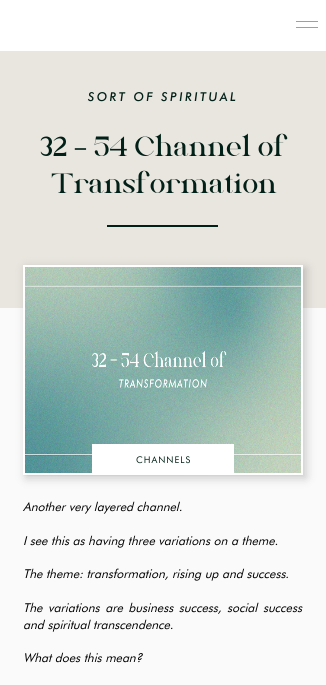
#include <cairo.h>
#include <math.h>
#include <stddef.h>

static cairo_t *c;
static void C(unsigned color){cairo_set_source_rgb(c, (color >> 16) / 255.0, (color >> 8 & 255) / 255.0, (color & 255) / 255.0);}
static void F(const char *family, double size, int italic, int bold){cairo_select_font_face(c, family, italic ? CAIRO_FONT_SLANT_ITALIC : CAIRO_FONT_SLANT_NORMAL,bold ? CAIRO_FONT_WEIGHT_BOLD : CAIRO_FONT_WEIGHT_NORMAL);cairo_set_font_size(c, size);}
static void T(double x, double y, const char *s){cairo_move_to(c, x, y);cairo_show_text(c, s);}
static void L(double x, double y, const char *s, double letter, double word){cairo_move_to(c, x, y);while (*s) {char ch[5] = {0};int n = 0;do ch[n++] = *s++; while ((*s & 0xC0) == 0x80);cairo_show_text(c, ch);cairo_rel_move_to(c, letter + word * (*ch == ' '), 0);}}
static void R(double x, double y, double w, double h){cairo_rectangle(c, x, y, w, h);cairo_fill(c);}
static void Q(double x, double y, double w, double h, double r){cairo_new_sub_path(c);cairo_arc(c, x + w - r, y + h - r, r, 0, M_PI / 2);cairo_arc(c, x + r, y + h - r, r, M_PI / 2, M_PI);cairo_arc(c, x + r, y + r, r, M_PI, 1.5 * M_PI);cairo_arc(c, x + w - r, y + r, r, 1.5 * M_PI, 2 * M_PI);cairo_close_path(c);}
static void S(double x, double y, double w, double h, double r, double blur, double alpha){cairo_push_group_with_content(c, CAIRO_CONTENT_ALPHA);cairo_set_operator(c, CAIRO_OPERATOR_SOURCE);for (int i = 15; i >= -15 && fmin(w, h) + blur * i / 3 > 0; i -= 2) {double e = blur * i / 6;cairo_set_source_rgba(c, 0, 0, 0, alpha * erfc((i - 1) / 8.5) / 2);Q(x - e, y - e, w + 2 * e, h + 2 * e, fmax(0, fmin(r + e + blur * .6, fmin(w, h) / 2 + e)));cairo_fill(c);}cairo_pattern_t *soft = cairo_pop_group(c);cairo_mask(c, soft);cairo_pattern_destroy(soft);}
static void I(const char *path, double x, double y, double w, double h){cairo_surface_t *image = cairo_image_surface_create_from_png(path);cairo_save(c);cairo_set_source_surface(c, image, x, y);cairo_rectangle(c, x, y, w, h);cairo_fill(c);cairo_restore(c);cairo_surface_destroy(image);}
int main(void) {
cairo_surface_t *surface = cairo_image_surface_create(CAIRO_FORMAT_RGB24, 326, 685);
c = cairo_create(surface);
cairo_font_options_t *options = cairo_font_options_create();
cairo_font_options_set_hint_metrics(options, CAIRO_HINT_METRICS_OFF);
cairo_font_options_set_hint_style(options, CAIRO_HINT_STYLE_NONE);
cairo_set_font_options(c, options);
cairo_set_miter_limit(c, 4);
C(0xe9e5df);
cairo_paint(c);
C(0xffffff);
R(0,0,326,51);
C(0x79afb1);
R(296,21,22,1);
R(296,27,22,1);
F("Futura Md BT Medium",12.25,1,0);
C(0x012017);
L(88,101,"SORT OF SPIRITUAL",2.4,0);
F("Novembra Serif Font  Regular",26.5,0,0);
T(40,156,"32 – 54 Channel of");
T(51,193,"Transformation");
R(107,225,111,2);
C(0xfafafa);
R(0,308,326,377);
I("1.png",23,267,279,209);
cairo_save(c);
cairo_set_fill_rule(c,CAIRO_FILL_RULE_EVEN_ODD);
cairo_new_path(c);
cairo_move_to(c,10,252);
cairo_line_to(c,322,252);
cairo_line_to(c,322,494);
cairo_line_to(c,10,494);
cairo_close_path(c);
cairo_move_to(c,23,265);
cairo_line_to(c,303,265);
cairo_line_to(c,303,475);
cairo_line_to(c,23,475);
cairo_close_path(c);
cairo_clip(c);
C(0x000000);
S(26,268,280,210,0,5,.2);
cairo_restore(c);
cairo_rectangle(c,24,266,278,208);
C(0xffffff);
cairo_stroke(c);
R(92,444,142,29);
F("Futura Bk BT",9.25,0,0);
C(0x012017);
L(136,463,"CHANNELS",1,0);
F("Futura Bk BT",12.25,1,0);
C(0x000000);
T(23,511,"Another very layered channel.");
T(23,545,"I see this as having three variations on a theme.");
T(23,578,"The theme: transformation, rising up and success.");
L(23,612,"The variations are business success, social success",0,2);
T(23,629,"and spiritual transcendence.");
T(23,662,"What does this mean?");
cairo_surface_write_to_png(surface, "o.png");
cairo_font_options_destroy(options);
cairo_destroy(c);
cairo_surface_destroy(surface);
return 0;
}
